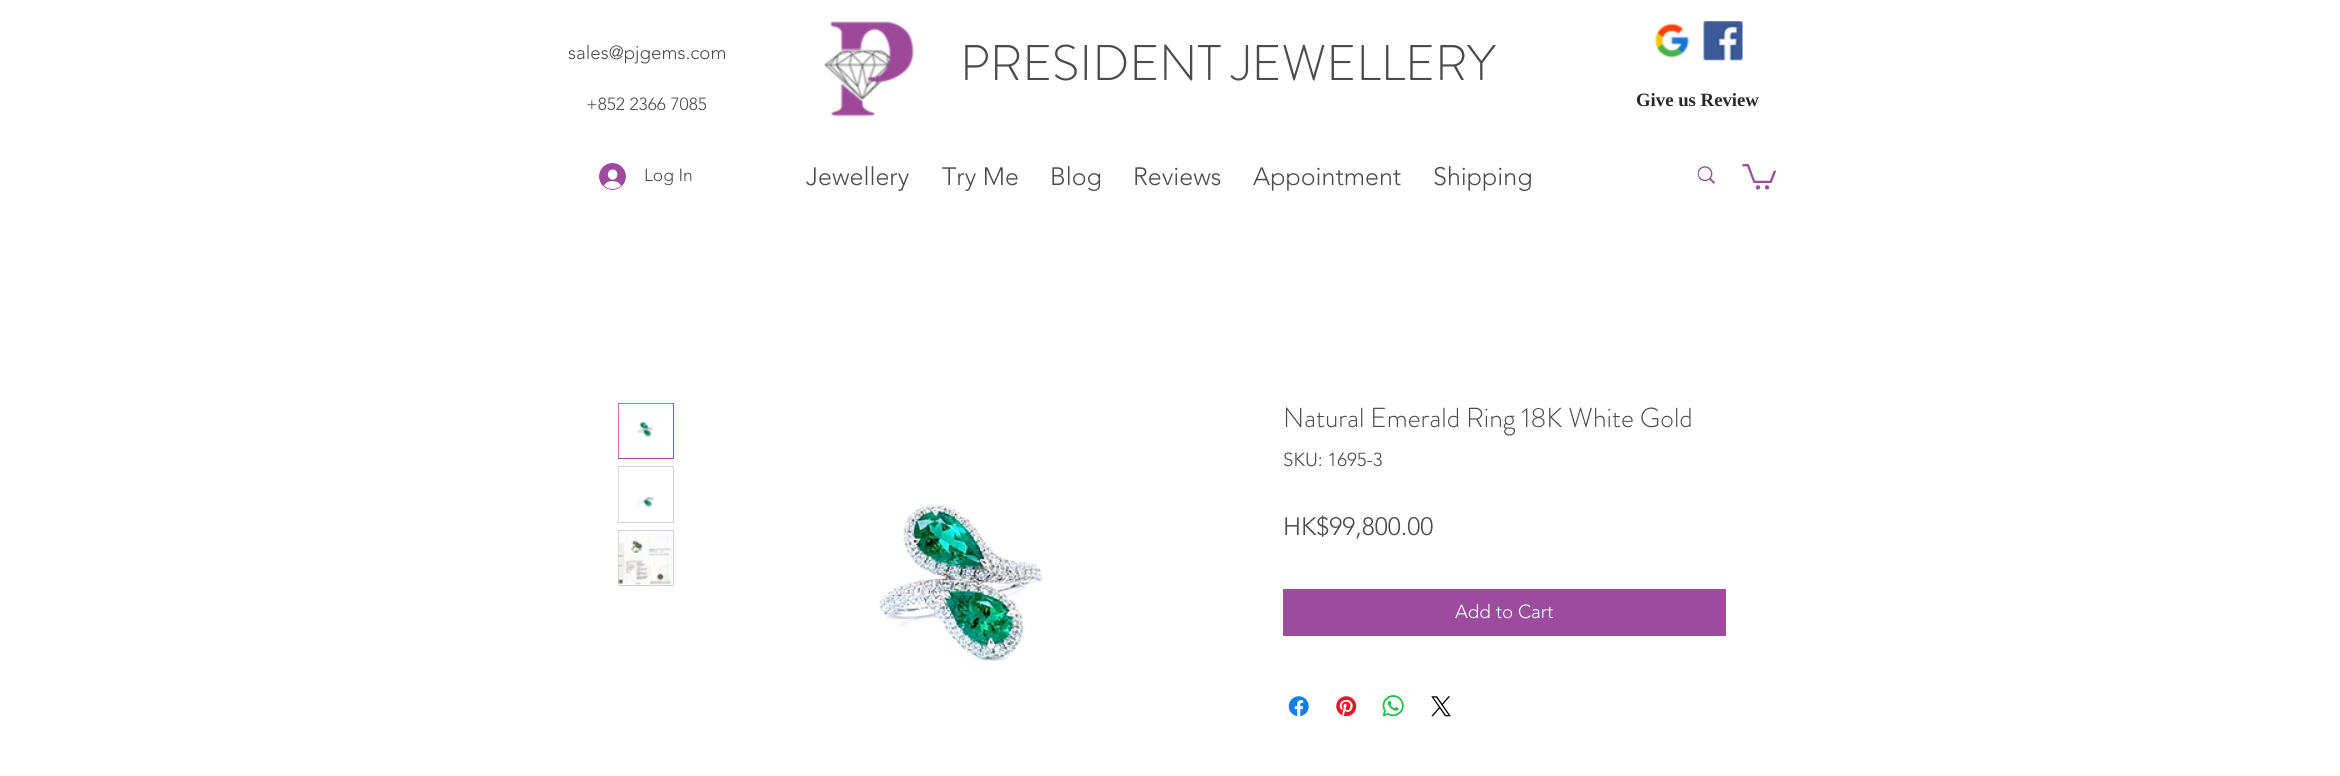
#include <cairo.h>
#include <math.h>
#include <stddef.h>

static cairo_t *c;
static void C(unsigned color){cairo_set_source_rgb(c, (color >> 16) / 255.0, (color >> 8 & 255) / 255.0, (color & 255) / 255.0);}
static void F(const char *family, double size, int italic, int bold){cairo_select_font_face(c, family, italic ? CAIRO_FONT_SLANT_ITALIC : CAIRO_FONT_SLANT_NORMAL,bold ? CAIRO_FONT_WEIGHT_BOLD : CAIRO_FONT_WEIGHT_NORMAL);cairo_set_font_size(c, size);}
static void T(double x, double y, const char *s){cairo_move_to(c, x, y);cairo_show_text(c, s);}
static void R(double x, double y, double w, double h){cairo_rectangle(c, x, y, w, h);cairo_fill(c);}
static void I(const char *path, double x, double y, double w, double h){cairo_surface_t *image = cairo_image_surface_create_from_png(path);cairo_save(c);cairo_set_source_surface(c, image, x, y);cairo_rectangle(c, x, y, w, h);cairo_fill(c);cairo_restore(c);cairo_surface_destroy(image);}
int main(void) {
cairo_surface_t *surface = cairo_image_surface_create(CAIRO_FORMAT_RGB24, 2340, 776);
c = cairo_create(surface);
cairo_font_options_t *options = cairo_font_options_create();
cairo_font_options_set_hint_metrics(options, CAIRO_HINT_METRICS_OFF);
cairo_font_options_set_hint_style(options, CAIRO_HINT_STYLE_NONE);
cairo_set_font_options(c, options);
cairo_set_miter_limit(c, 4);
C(0xffffff);
cairo_paint(c);
F("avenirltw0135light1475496 Light",18.75,0,0);
C(0x4b4c4b);
T(568,59,"sales@pjgems.com");
I("1.png",824,21,91,96);
F("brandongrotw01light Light",50,0,0);
T(960,80,"PRESIDENT JEWELLERY");
I("2.png",1654,23,36,36);
I("3.png",1703,21,40,40);
F("avenirltw0135light1475496 Light",17.5,0,0);
T(586,110,"+852 2366 7085");
F("Liberation Serif",18.75,0,1);
C(0x292929);
T(1636,106,"Give us Review");
I("4.png",599,163,27,27);
F("avenirltw0135light1475496 Light",17.5,0,0);
C(0x4b4c4b);
T(644,181,"Log In");
F("avenirltw0135light1475496 Light",25,0,0);
T(806,185,"Jewellery");
T(942,185,"Try Me");
T(1050,185,"Blog");
T(1133,185,"Reviews");
T(1253,185,"Appointment");
T(1433,185,"Shipping");
I("5.png",1698,166,17,18);
I("6.png",1742,164,35,26);
cairo_rectangle(c,618.5,403.5,55,55);
C(0x9c4c9c);
cairo_set_line_width(c,1);
cairo_stroke(c);
I("7.png",618,403,55,55);
cairo_rectangle(c,618.5,466.5,55,56);
C(0xd2d2d2);
cairo_stroke(c);
I("8.png",618,468,40,53);
C(0xffffff);
cairo_new_path(c);
cairo_move_to(c,639,486);
cairo_line_to(c,639,502.5);
cairo_line_to(c,653.5,494.5);
cairo_close_path(c);
cairo_fill(c);
cairo_rectangle(c,618.5,530.5,55,55);
C(0xd2d2d2);
cairo_stroke(c);
I("9.png",618,531,55,54);
I("10.png",879,504,164,158);
F("brandongrotw01light Light",27.5,0,0);
C(0x4b4c4b);
T(1283,427,"Natural Emerald Ring 18K White Gold");
F("avenirltw0135light1475496 Light",18.75,0,0);
T(1283,466,"SKU: 1695-3");
F("avenirltw0135light1475496 Light",25,0,0);
T(1283,535,"HK$99,800.00");
C(0x9c4c9c);
R(1283,589,443,47);
F("avenirltw0135light1475496 Light",18.75,0,0);
C(0xffffff);
T(1455,618,"Add to Cart");
I("11.png",1288,696,21,21);
I("12.png",1336,696,21,21);
I("13.png",1382,695,22,22);
I("14.png",1431,696,20,21);
cairo_surface_write_to_png(surface, "o.png");
cairo_font_options_destroy(options);
cairo_destroy(c);
cairo_surface_destroy(surface);
return 0;
}
